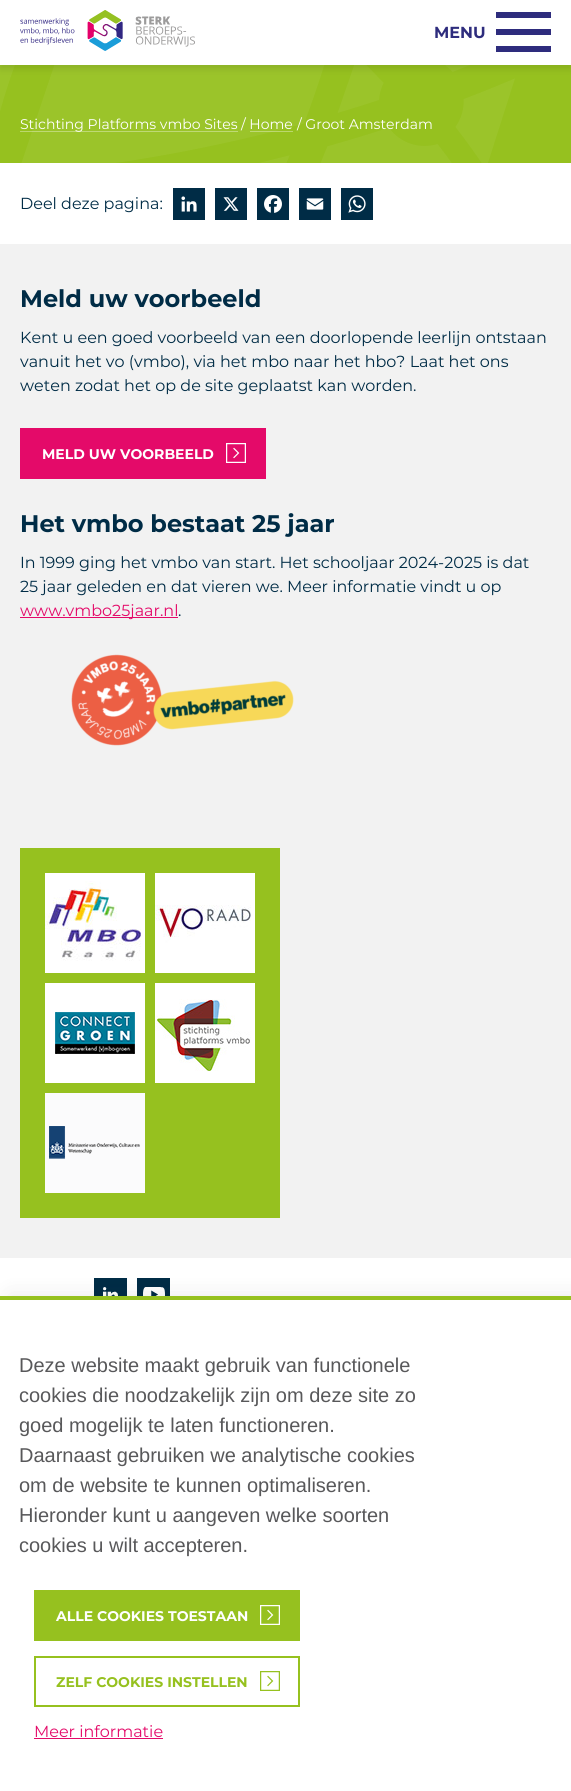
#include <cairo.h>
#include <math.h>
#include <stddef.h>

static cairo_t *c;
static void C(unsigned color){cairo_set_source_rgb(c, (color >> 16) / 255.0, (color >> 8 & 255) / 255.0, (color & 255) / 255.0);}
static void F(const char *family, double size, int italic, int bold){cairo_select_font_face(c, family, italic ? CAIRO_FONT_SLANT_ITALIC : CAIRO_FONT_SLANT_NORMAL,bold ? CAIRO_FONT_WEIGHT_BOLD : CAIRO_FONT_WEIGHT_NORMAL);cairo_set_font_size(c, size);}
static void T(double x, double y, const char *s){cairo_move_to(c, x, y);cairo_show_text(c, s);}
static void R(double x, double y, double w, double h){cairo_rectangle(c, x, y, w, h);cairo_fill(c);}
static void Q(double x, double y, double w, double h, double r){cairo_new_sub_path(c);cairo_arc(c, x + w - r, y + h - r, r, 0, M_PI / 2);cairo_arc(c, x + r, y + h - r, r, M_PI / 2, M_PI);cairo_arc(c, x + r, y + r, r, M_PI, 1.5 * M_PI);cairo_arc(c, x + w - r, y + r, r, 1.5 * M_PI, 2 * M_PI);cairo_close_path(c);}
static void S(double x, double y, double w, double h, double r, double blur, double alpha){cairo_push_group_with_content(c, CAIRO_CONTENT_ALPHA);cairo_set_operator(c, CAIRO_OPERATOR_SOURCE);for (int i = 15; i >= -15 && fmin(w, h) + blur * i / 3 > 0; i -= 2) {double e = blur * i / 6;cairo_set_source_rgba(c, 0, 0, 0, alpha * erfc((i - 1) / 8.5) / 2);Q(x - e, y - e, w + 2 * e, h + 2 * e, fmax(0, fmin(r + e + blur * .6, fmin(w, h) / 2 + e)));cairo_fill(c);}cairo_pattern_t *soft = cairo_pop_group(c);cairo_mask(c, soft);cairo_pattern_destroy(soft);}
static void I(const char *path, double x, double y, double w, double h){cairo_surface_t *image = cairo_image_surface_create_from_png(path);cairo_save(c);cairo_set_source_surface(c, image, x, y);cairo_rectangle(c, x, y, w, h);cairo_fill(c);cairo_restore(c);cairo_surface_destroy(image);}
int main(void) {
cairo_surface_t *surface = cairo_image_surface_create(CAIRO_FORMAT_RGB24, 571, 1791);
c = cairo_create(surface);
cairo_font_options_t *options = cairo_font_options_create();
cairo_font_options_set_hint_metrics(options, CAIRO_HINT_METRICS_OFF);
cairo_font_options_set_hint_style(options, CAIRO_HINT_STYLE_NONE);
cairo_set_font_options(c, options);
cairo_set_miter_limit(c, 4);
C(0xffffff);
cairo_paint(c);
C(0x96c11f);
R(0,65,571,98);
I("2.png",0,65,515,98);
C(0x000000);
S(0,4,571,65,0,3.5,.1);
C(0xffffff);
R(0,0,571,65);
I("1.png",20,10,175,41);
C(0x2e2c7d);
R(496,12,55,6);
F("Montserrat",16,0,1);
T(434,38,"MENU");
R(496,29,55,6);
R(496,46,55,6);
F("Montserrat",14,0,0);
C(0xffffff);
T(20,129,"Stichting Platforms vmbo Sites");
cairo_set_source_rgba(c,1,1,1,0.35);
R(20,131,218,1);
C(0xffffff);
T(241,129,"/ Home");
T(297,129,"/ Groot Amsterdam");
cairo_set_source_rgba(c,1,1,1,0.35);
R(250,131,43,1);
F("Montserrat",16,0,0);
C(0x002c46);
T(20,209,"Deel deze pagina:");
R(173,188,32,32);
I("3.png",181,196,16,16);
R(215,188,32,32);
I("4.png",223,197,16,14);
R(257,188,32,32);
I("5.png",264,195,18,18);
R(299,188,32,32);
I("6.png",306,198,18,12);
R(341,188,32,32);
I("7.png",348,195,18,18);
C(0xf2f2f2);
R(0,244,571,1014);
F("Montserrat",24,0,1);
C(0x002c46);
T(20,307,"Meld uw voorbeeld");
F("Montserrat",16,0,0);
T(20,343,"Kent u een goed voorbeeld van een doorlopende leerlijn ontstaan");
T(20,367,"vanuit het vo (vmbo), via het mbo naar het hbo? Laat het ons");
T(20,391,"weten zodat het op de site geplaatst kan worden.");
C(0xe40a69);
R(20,428,246,51);
F("Montserrat",14,0,1);
C(0xffffff);
T(42,459,"MELD UW VOORBEELD");
I("8.png",226,443,20,20);
F("Montserrat",24,0,1);
C(0x002c46);
T(20,532,"Het vmbo bestaat 25 jaar");
F("Montserrat",16,0,0);
T(20,568,"In 1999 ging het vmbo van start. Het schooljaar 2024-2025 is dat");
T(20,592,"25 jaar geleden en dat vieren we. Meer informatie vindt u op");
C(0xe40a69);
R(20,617,158,1);
T(20,616,"www.vmbo25jaar.nl");
C(0x002c46);
T(178,616,".");
I("9.png",71,654,223,92);
C(0x96c11f);
R(20,848,260,370);
I("10.png",45,873,100,100);
I("11.png",155,873,100,100);
I("12.png",45,983,100,100);
I("13.png",155,983,100,100);
I("14.png",45,1093,100,100);
C(0x002c46);
R(94,1278,33,18);
I("15.png",103,1287,15,9);
R(137,1278,33,18);
I("16.png",143,1287,22,9);
C(0x1a171b);
S(10,1296,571,495,0,10,.1);
C(0xffffff);
R(0,1300,571,491);
C(0x96c11f);
R(0,1296,571,4);
F("Liberation Sans",20,0,0);
C(0x58585a);
T(19,1372,"Deze website maakt gebruik van functionele");
T(19,1402,"cookies die noodzakelijk zijn om deze site zo");
T(19,1432,"goed mogelijk te laten functioneren.");
T(19,1462,"Daarnaast gebruiken we analytische cookies");
T(19,1492,"om de website te kunnen optimaliseren.");
T(19,1522,"Hieronder kunt u aangeven welke soorten");
T(19,1552,"cookies u wilt accepteren.");
C(0x96c11f);
R(34,1590,266,51);
F("Montserrat",14,0,1);
C(0xffffff);
T(56,1621,"ALLE COOKIES TOESTAAN");
I("17.png",260,1605,20,20);
cairo_rectangle(c,35,1657,264,49);
C(0x96c11f);
cairo_stroke(c);
T(56,1687,"ZELF COOKIES INSTELLEN");
I("18.png",260,1671,20,20);
F("Montserrat",16,0,0);
C(0xe40a69);
T(34,1737,"Meer informatie");
R(34,1738,129,1);
cairo_surface_write_to_png(surface, "o.png");
cairo_font_options_destroy(options);
cairo_destroy(c);
cairo_surface_destroy(surface);
return 0;
}
